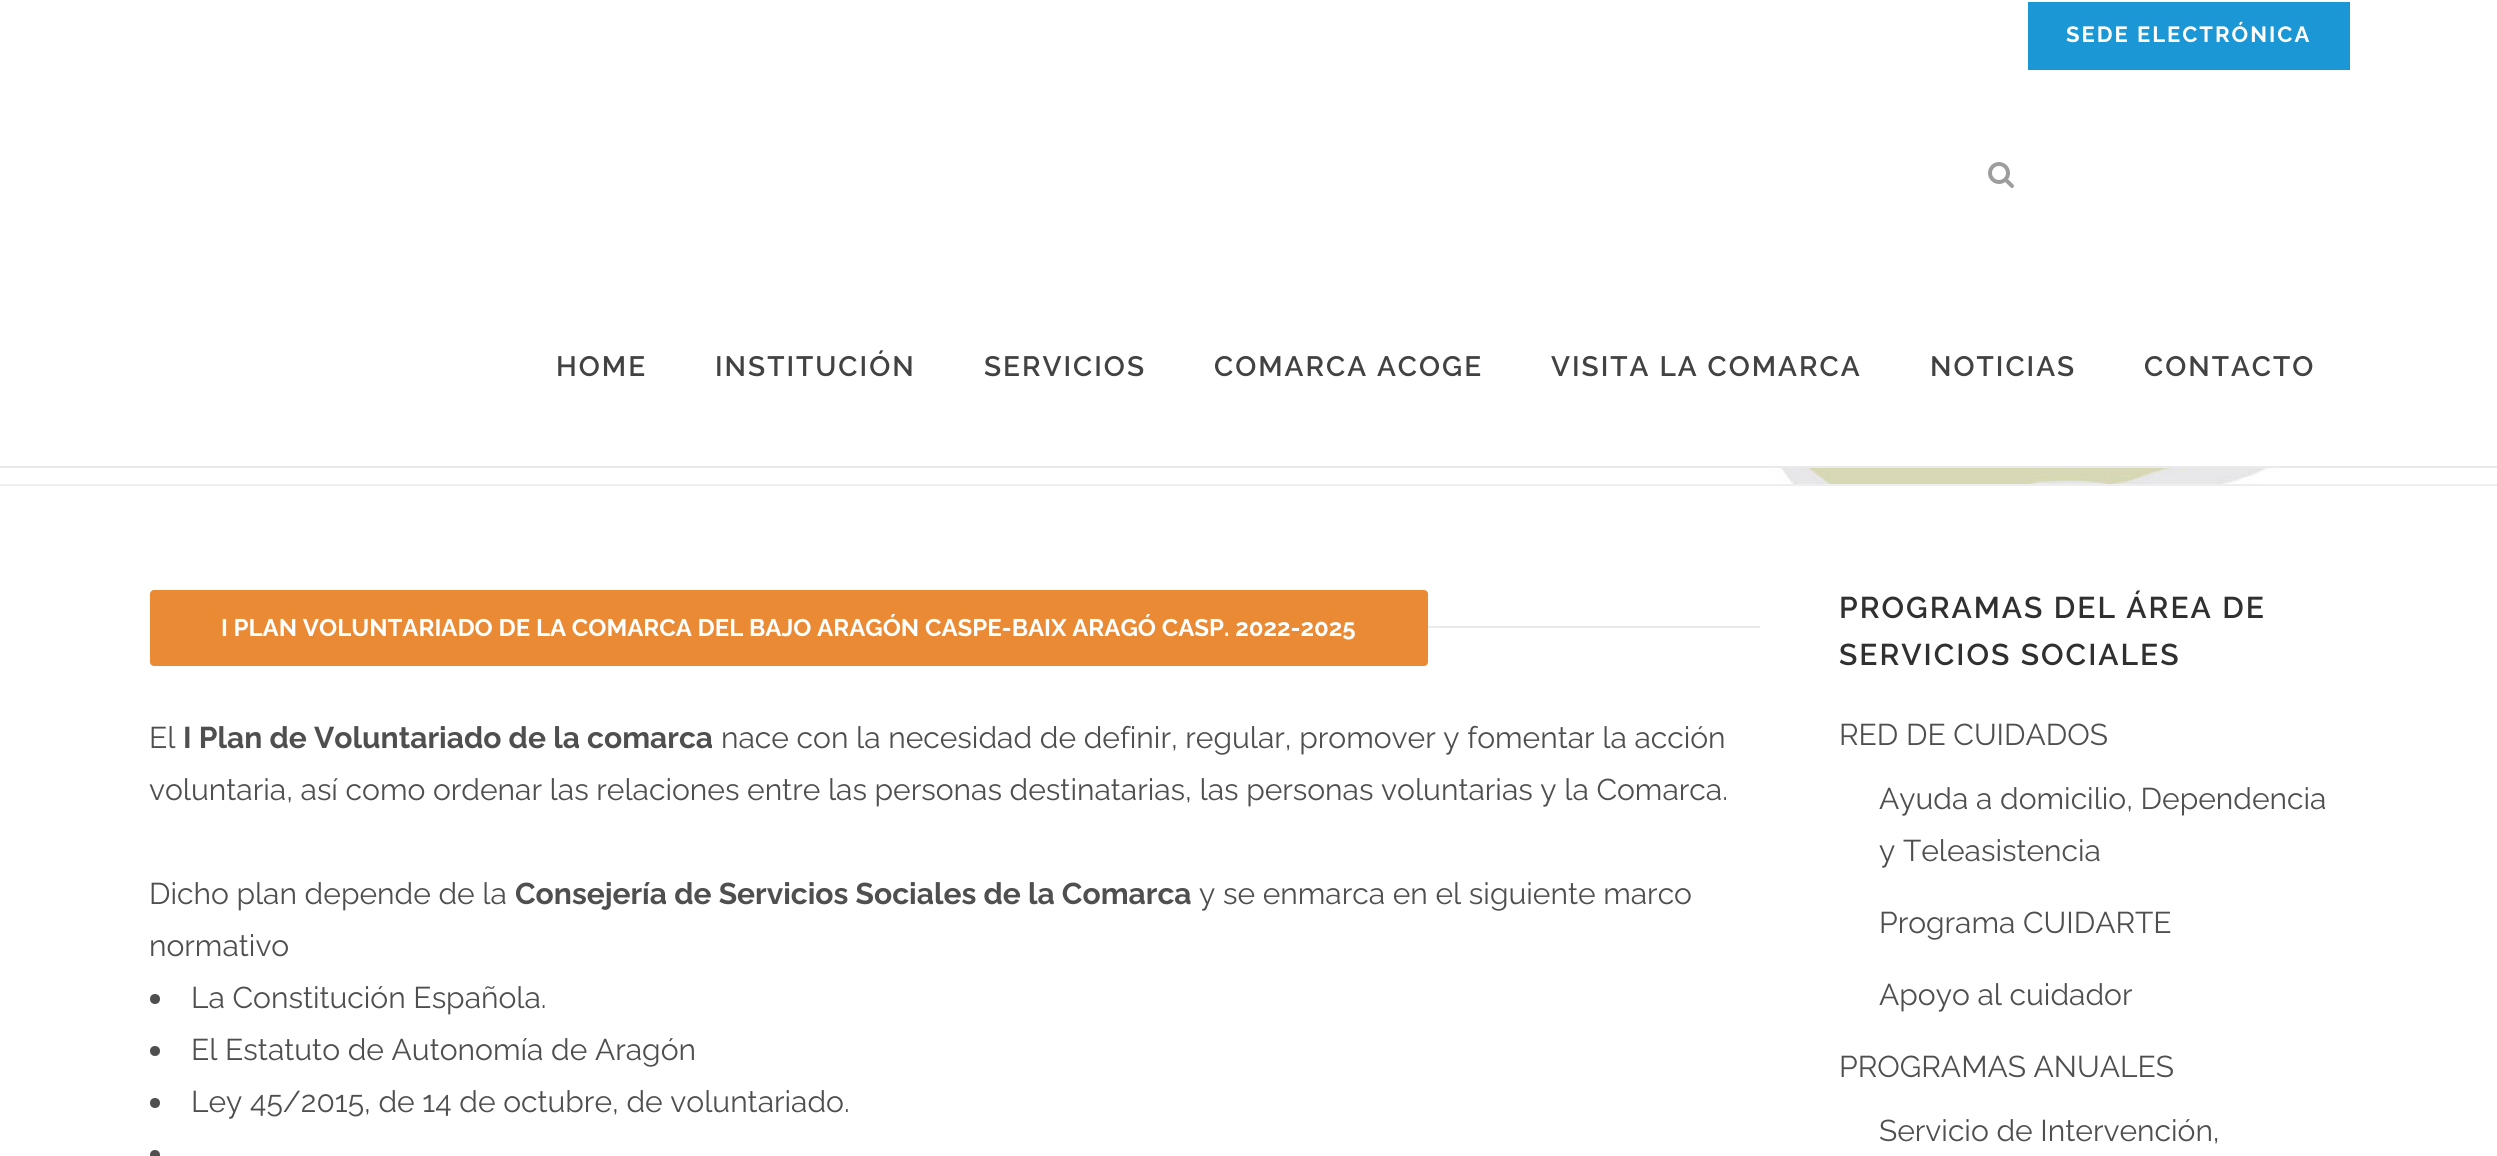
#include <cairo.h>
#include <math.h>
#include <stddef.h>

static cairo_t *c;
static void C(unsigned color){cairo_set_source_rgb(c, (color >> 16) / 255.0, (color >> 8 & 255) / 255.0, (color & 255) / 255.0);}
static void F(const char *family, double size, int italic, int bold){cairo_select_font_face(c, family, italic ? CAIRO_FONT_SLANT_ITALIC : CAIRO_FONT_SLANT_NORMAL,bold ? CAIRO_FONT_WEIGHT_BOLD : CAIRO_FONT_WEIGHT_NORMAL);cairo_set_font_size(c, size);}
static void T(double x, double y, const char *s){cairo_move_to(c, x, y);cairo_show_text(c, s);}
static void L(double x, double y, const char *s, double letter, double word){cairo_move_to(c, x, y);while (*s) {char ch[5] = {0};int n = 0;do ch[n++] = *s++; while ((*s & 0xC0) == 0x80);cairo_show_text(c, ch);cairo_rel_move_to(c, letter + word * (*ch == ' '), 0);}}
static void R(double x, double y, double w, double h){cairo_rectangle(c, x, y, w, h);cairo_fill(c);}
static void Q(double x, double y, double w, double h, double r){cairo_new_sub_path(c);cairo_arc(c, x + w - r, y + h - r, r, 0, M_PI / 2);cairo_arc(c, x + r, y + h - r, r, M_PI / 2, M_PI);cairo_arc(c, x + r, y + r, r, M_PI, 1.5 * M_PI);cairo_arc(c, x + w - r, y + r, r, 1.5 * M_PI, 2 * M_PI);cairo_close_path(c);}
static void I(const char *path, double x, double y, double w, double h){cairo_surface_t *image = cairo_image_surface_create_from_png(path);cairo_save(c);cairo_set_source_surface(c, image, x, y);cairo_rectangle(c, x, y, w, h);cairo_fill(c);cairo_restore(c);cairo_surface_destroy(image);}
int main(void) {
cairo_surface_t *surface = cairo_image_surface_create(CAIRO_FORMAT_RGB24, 2497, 1156);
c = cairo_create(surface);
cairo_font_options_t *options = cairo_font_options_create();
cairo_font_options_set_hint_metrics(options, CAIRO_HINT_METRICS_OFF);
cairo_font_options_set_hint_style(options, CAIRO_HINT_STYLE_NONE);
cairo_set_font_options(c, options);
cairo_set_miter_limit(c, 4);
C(0xffffff);
cairo_paint(c);
C(0x1b97d5);
R(2028,2,322,68);
F("Raleway",22,0,1);
C(0xffffff);
L(2066,42,"SEDE ELECTRÓNICA",2,0);
C(0xeaeaea);
R(0,466,2497,2);
I("1.png",1988,162,26,26);
F("Raleway SemiBold",28,0,0);
C(0x424242);
L(556,376,"HOME",2,0);
L(715,376,"INSTITUCIÓN",2,0);
L(984,376,"SERVICIOS",2,0);
L(1214,376,"COMARCA ACOGE",2,0);
L(1551,376,"VISITA LA COMARCA",2,0);
L(1930,376,"NOTICIAS",2,0);
L(2144,376,"CONTACTO",2,0);
C(0xeeeeee);
R(0,484,2497,2);
I("2.png",1759,468,687,16);
C(0xeaeaea);
R(1428,626,332,2);
C(0xea8a34);
Q(150,590,1278,76,4);
cairo_fill(c);
F("Raleway",24,0,1);
C(0xffffff);
T(221,636,"I PLAN VOLUNTARIADO DE LA COMARCA DEL BAJO ARAGÓN CASPE-BAIX ARAGÓ CASP. 2022-2025");
F("Raleway",30,0,0);
C(0x4f4f4f);
T(149,748,"El");
F("Raleway",30,0,1);
T(183,748,"I Plan de Voluntariado de la comarca");
F("Raleway",30,0,0);
T(721,748,"nace con la necesidad de definir, regular, promover y fomentar la acción");
T(149,800,"voluntaria, así como ordenar las relaciones entre las personas destinatarias, las personas voluntarias y la Comarca.");
T(149,904,"Dicho plan depende de la");
F("Raleway",30,0,1);
T(515,904,"Consejería de Servicios Sociales de la Comarca");
F("Raleway",30,0,0);
T(1199,904,"y se enmarca en el siguiente marco");
T(149,956,"normativo");
cairo_new_path(c);
cairo_arc(c,155,999,5,0,2 * M_PI);
cairo_fill(c);
T(191,1008,"La Constitución Española.");
cairo_new_path(c);
cairo_arc(c,155,1051,5,0,2 * M_PI);
cairo_fill(c);
T(191,1060,"El Estatuto de Autonomía de Aragón");
cairo_new_path(c);
cairo_arc(c,155,1103,5,0,2 * M_PI);
cairo_fill(c);
T(191,1112,"Ley 45/2015, de 14 de octubre, de voluntariado.");
cairo_new_path(c);
cairo_arc(c,155,1155,5,0,2 * M_PI);
cairo_fill(c);
F("Raleway SemiBold",30,0,0);
C(0x303030);
L(1839,618,"PROGRAMAS DEL ÁREA DE",2,0);
L(1839,665,"SERVICIOS SOCIALES",2,0);
F("Raleway",30,0,0);
C(0x4f4f4f);
T(1839,745,"RED DE CUIDADOS");
T(1879,809,"Ayuda a domicilio, Dependencia");
T(1879,861,"y Teleasistencia");
T(1879,933,"Programa CUIDARTE");
T(1879,1005,"Apoyo al cuidador");
T(1839,1077,"PROGRAMAS ANUALES");
T(1879,1141,"Servicio de Intervención,");
cairo_surface_write_to_png(surface, "o.png");
cairo_font_options_destroy(options);
cairo_destroy(c);
cairo_surface_destroy(surface);
return 0;
}
